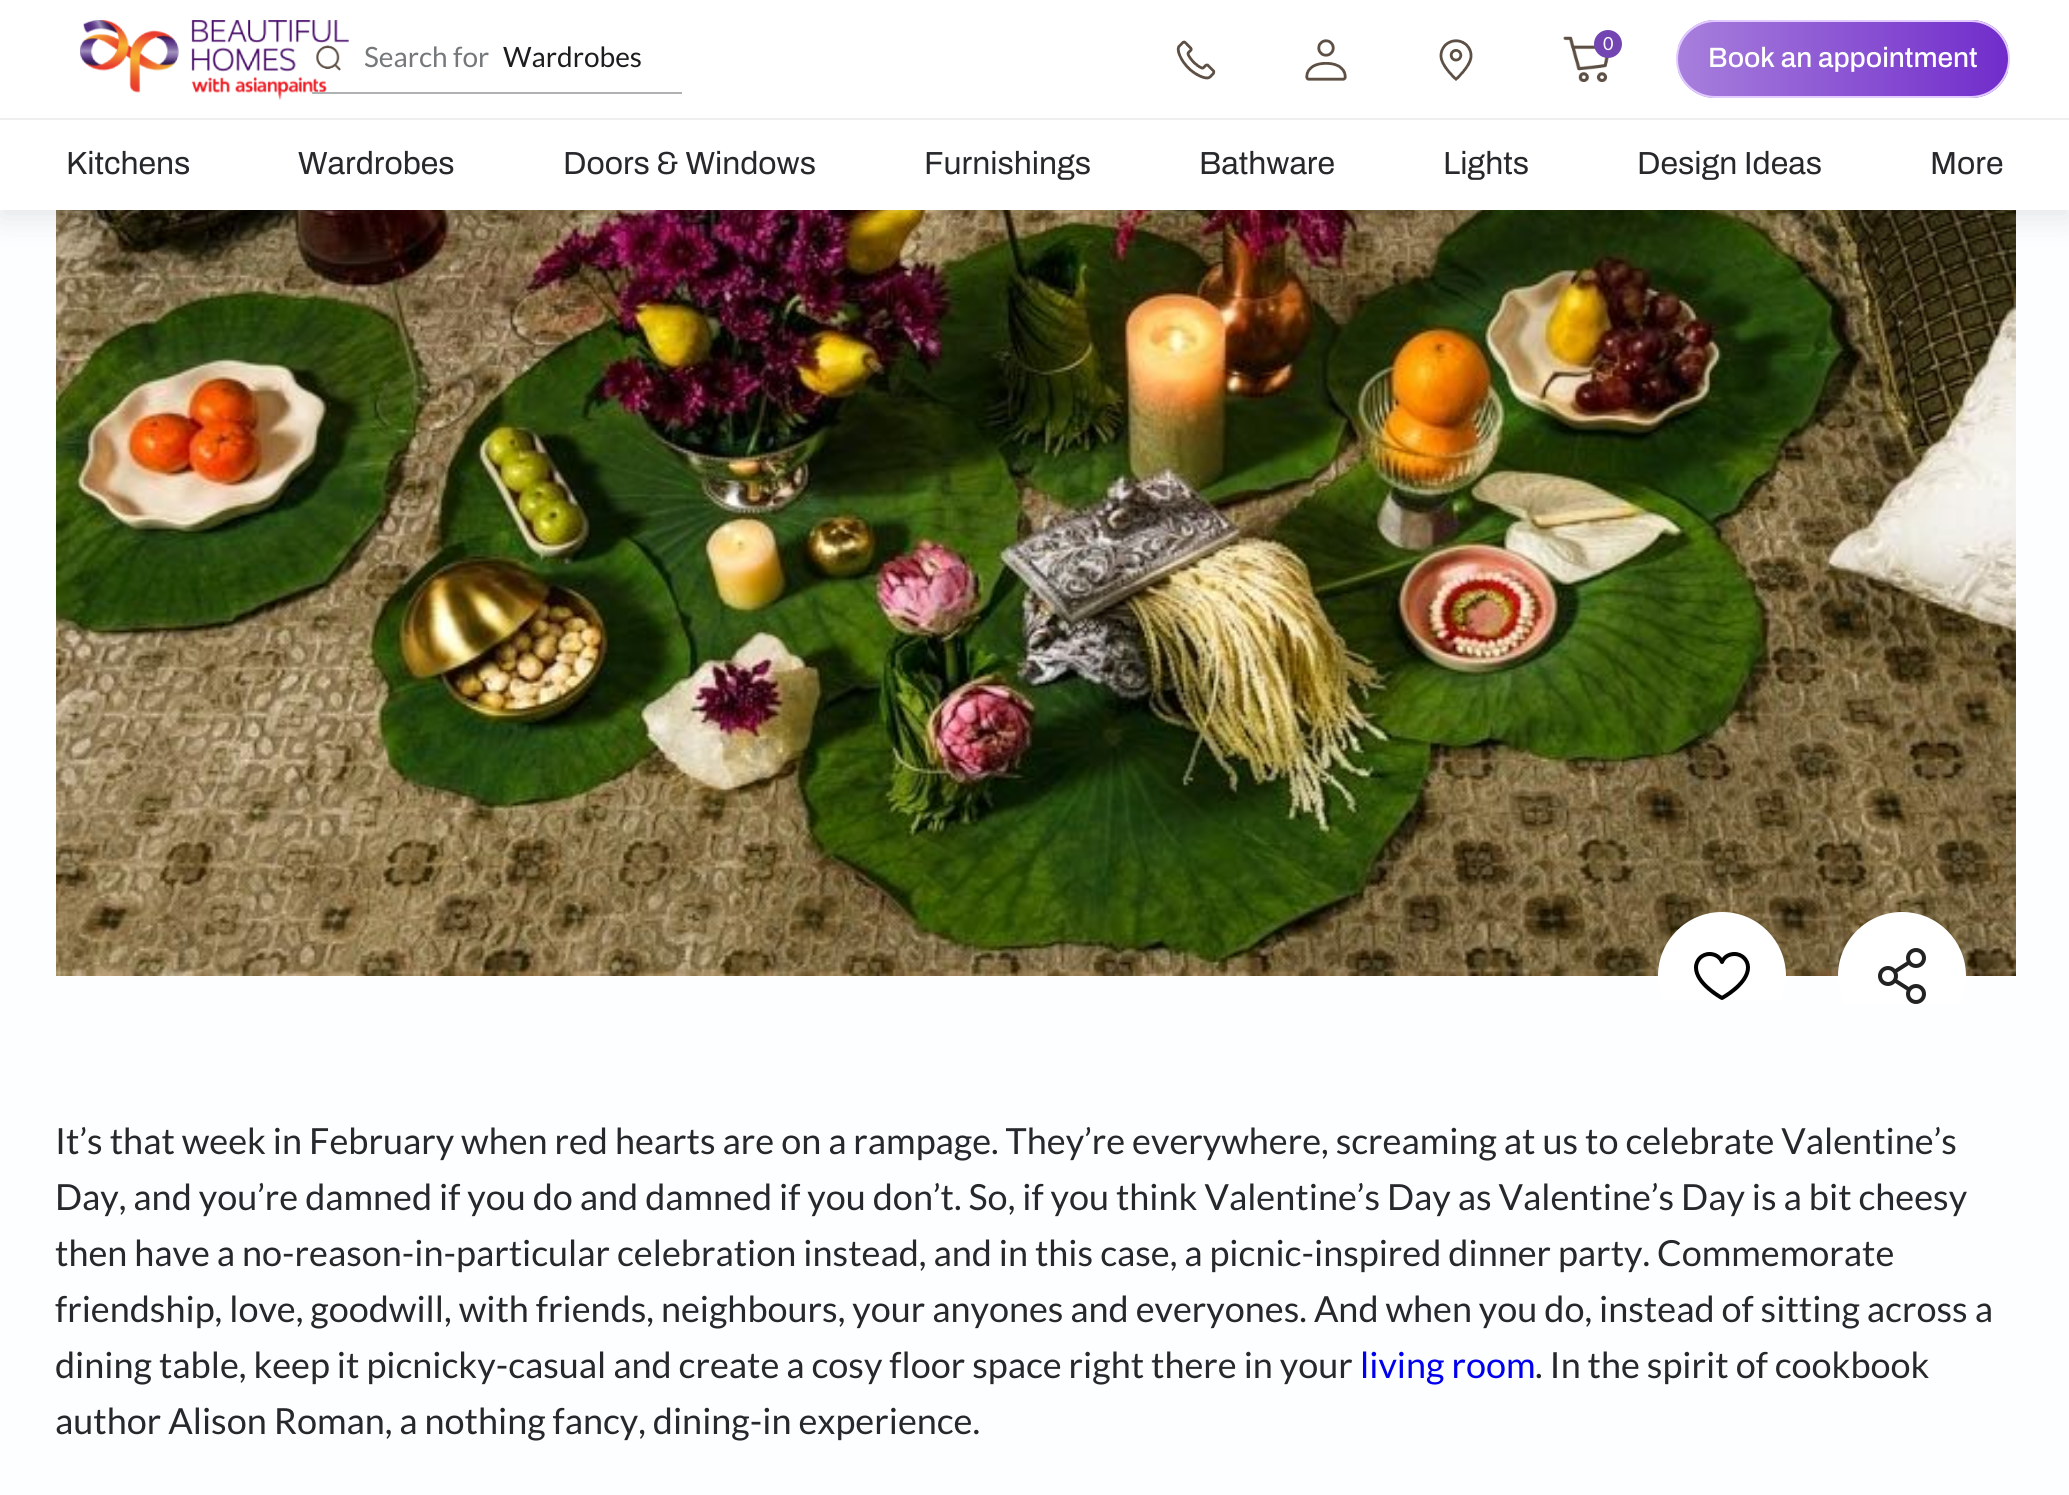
#include <cairo.h>
#include <math.h>
#include <stddef.h>

static cairo_t *c;
static void C(unsigned color){cairo_set_source_rgb(c, (color >> 16) / 255.0, (color >> 8 & 255) / 255.0, (color & 255) / 255.0);}
static void F(const char *family, double size, int italic, int bold){cairo_select_font_face(c, family, italic ? CAIRO_FONT_SLANT_ITALIC : CAIRO_FONT_SLANT_NORMAL,bold ? CAIRO_FONT_WEIGHT_BOLD : CAIRO_FONT_WEIGHT_NORMAL);cairo_set_font_size(c, size);}
static void T(double x, double y, const char *s){cairo_move_to(c, x, y);cairo_show_text(c, s);}
static void R(double x, double y, double w, double h){cairo_rectangle(c, x, y, w, h);cairo_fill(c);}
static void Q(double x, double y, double w, double h, double r){cairo_new_sub_path(c);cairo_arc(c, x + w - r, y + h - r, r, 0, M_PI / 2);cairo_arc(c, x + r, y + h - r, r, M_PI / 2, M_PI);cairo_arc(c, x + r, y + r, r, M_PI, 1.5 * M_PI);cairo_arc(c, x + w - r, y + r, r, 1.5 * M_PI, 2 * M_PI);cairo_close_path(c);}
static void S(double x, double y, double w, double h, double r, double blur, double alpha){cairo_push_group_with_content(c, CAIRO_CONTENT_ALPHA);cairo_set_operator(c, CAIRO_OPERATOR_SOURCE);for (int i = 15; i >= -15 && fmin(w, h) + blur * i / 3 > 0; i -= 2) {double e = blur * i / 6;cairo_set_source_rgba(c, 0, 0, 0, alpha * erfc((i - 1) / 8.5) / 2);Q(x - e, y - e, w + 2 * e, h + 2 * e, fmax(0, fmin(r + e + blur * .6, fmin(w, h) / 2 + e)));cairo_fill(c);}cairo_pattern_t *soft = cairo_pop_group(c);cairo_mask(c, soft);cairo_pattern_destroy(soft);}
static void I(const char *path, double x, double y, double w, double h){cairo_surface_t *image = cairo_image_surface_create_from_png(path);cairo_save(c);cairo_set_source_surface(c, image, x, y);cairo_rectangle(c, x, y, w, h);cairo_fill(c);cairo_restore(c);cairo_surface_destroy(image);}
int main(void) {
cairo_surface_t *surface = cairo_image_surface_create(CAIRO_FORMAT_RGB24, 2069, 1495);
c = cairo_create(surface);
cairo_font_options_t *options = cairo_font_options_create();
cairo_font_options_set_hint_metrics(options, CAIRO_HINT_METRICS_OFF);
cairo_font_options_set_hint_style(options, CAIRO_HINT_STYLE_NONE);
cairo_set_font_options(c, options);
cairo_set_miter_limit(c, 4);
cairo_pattern_t *gradient;
C(0xfdfeff);
cairo_paint(c);
I("7.png",56,210,1960,766);
C(0x000000);
S(0,8,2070,210,0,16,.1);
C(0xffffff);
R(0,0,2069,118);
C(0xefefef);
R(0,118,2069,2);
I("1.png",80,20,269,80);
C(0xb0b1b3);
R(312,92,370,2);
I("2.png",316,45,25,26);
F("Lato",28,0,0);
C(0x75787b);
T(364,67,"Search for");
C(0x1d1d1f);
T(503,67,"Wardrobes");
I("3.png",1176,40,40,40);
I("4.png",1305,39,42,42);
I("5.png",1439,39,34,42);
I("6.png",1563,36,46,46);
C(0x7345b2);
cairo_arc(c,1608,44,14,0,2 * M_PI);
cairo_fill(c);
F("Lato",18,0,0);
C(0xffffff);
T(1603,50,"0");
cairo_save(c);
Q(1676,20,334,78,39);
cairo_clip(c);
gradient = cairo_pattern_create_linear(2008,59,1678,59);
cairo_pattern_add_color_stop_rgba(gradient,0,0.443,0.173,0.796,1);
cairo_pattern_add_color_stop_rgba(gradient,1,0.655,0.498,0.863,1);
cairo_set_source(c,gradient);
cairo_pattern_destroy(gradient);
R(1678,20,330,78);
cairo_restore(c);
Q(1677,21,332,76,38);
C(0xe2cbff);
cairo_stroke(c);
F("Archivo Medium",28,0,0);
C(0xffffff);
T(1708,67,"Book an appointment");
R(0,120,2069,90);
F("Archivo",32,0,0);
C(0x26282b);
T(66,174,"Kitchens");
T(298,174,"Wardrobes");
T(563,174,"Doors & Windows");
T(924,174,"Furnishings");
T(1199,174,"Bathware");
T(1443,174,"Lights");
T(1637,174,"Design Ideas");
T(1930,174,"More");
I("8.png",1658,912,128,88);
I("9.png",1838,912,128,92);
F("Lato",36,0,0);
T(55,1154,"It’s that week in February when red hearts are on a rampage. They’re everywhere, screaming at us to celebrate Valentine’s");
T(55,1210,"Day, and you’re damned if you do and damned if you don’t. So, if you think Valentine’s Day as Valentine’s Day is a bit cheesy");
T(55,1266,"then have a no-reason-in-particular celebration instead, and in this case, a picnic-inspired dinner party. Commemorate");
T(55,1322,"friendship, love, goodwill, with friends, neighbours, your anyones and everyones. And when you do, instead of sitting across a");
T(55,1378,"dining table, keep it picnicky-casual and create a cosy floor space right there in your");
C(0x0000ee);
T(1360,1378,"living room");
C(0x26282b);
T(1535,1378,". In the spirit of cookbook");
T(55,1434,"author Alison Roman, a nothing fancy, dining-in experience.");
cairo_surface_write_to_png(surface, "o.png");
cairo_font_options_destroy(options);
cairo_destroy(c);
cairo_surface_destroy(surface);
return 0;
}
